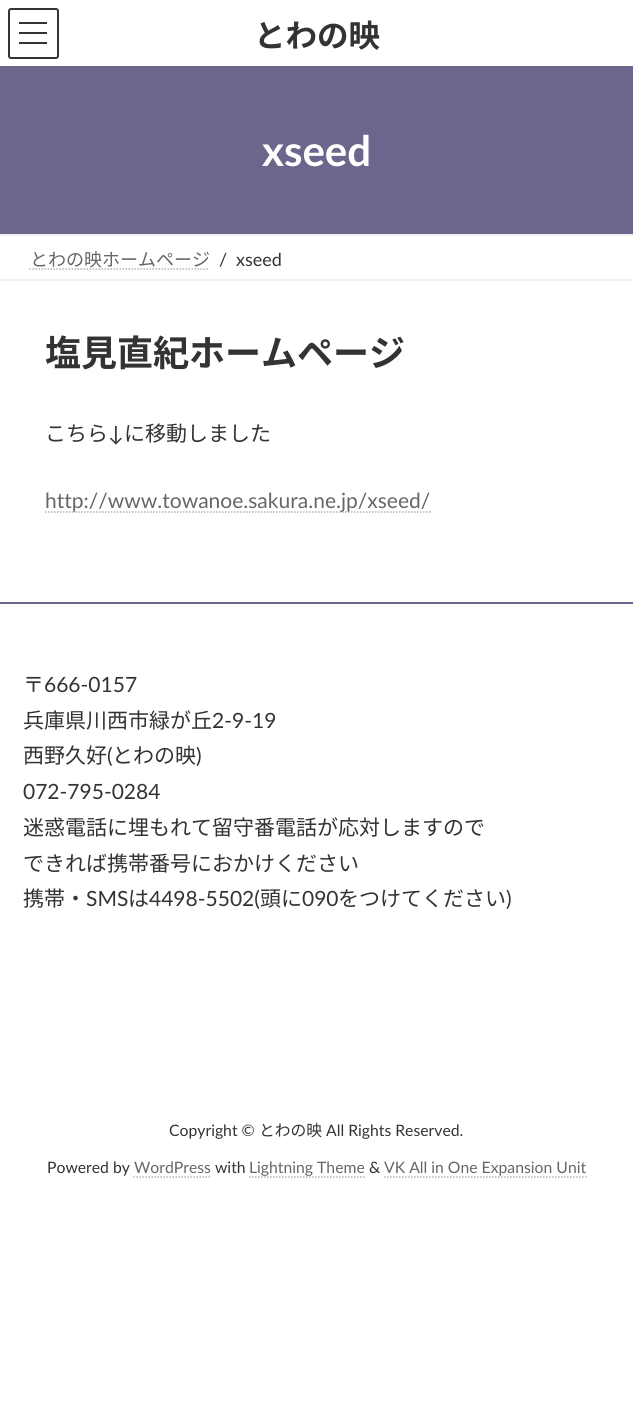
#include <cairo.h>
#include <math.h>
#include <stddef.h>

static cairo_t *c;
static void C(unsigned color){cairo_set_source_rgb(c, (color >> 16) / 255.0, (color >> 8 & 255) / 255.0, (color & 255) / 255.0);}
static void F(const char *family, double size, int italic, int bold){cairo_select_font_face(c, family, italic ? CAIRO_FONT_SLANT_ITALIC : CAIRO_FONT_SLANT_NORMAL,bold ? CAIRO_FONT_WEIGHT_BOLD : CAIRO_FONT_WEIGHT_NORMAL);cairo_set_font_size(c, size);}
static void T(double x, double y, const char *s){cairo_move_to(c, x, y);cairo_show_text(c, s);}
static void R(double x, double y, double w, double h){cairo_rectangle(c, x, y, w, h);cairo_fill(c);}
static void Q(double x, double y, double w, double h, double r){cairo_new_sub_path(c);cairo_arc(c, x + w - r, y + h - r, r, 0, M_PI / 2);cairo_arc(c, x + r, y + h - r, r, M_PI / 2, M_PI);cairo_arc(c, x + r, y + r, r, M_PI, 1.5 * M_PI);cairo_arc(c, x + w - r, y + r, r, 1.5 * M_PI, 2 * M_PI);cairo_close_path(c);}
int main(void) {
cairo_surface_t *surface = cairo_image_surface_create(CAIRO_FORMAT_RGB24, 633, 1417);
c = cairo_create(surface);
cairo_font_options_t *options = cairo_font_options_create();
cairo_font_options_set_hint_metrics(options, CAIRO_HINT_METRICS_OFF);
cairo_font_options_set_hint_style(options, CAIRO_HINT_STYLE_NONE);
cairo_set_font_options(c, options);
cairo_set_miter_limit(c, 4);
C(0xffffff);
cairo_paint(c);
C(0x333333);
R(19,22,28,2);
R(19,32,28,2);
R(19,42,28,2);
Q(9,9,49,49,2);
cairo_stroke(c);
F("Noto Sans JP",31.5,0,1);
T(254,47,"とわの映");
C(0x6a668c);
R(0,66,633,168);
F("Lato",42,0,1);
C(0xffffff);
T(262,166,"xseed");
C(0xf0f0f0);
R(0,234,633,2);
R(0,279,633,2);
F("Noto Sans JP",18,0,0);
C(0x666666);
T(30,266,"とわの映ホームページ");
cairo_new_path(c);
cairo_move_to(c,29.5,269);
cairo_line_to(c,209.5,269);
C(0xb3b3b3);
cairo_set_line_width(c,1.5);
cairo_set_dash(c,(double[]){1.5,1.5},2,0);
cairo_stroke(c);
F("Lato",18,0,0);
C(0x333333);
T(219,266,"/");
T(236,266,"xseed");
F("Noto Sans JP",36,0,1);
T(45,366,"塩見直紀ホームページ");
F("Noto Sans JP",21,0,0);
T(45,441,"こちら");
F("Lato",21,0,0);
T(108,441,"↓");
F("Noto Sans JP",21,0,0);
T(124,441,"に移動しました");
cairo_new_path(c);
cairo_move_to(c,45,512);
cairo_line_to(c,430.5,512);
C(0xb3b3b3);
cairo_stroke(c);
F("Lato",21,0,0);
C(0x666666);
T(45,508,"http://www.towanoe.sakura.ne.jp/xseed/");
C(0x6a668c);
R(0,602,633,2);
F("Noto Sans JP",21,0,0);
C(0x333333);
T(23,692,"〒");
F("Lato",21,0,0);
T(44,692,"666-0157");
F("Noto Sans JP",21,0,0);
T(23,728,"兵庫県川西市緑が丘");
F("Lato",21,0,0);
T(212,728,"2-9-19");
F("Noto Sans JP",21,0,0);
T(23,763,"西野久好");
F("Lato",21,0,0);
T(107,763,"(");
F("Noto Sans JP",21,0,0);
T(112,763,"とわの映");
F("Lato",21,0,0);
T(196,763,")");
T(23,799,"072-795-0284");
F("Noto Sans JP",21,0,0);
T(23,835,"迷惑電話に埋もれて留守番電話が応対しますので");
T(23,871,"できれば携帯番号におかけください");
T(23,906,"携帯・");
F("Lato",21,0,0);
T(86,906,"SMS");
F("Noto Sans JP",21,0,0);
T(128,906,"は");
F("Lato",21,0,0);
T(149,906,"4498-5502(");
F("Noto Sans JP",21,0,0);
T(260,906,"頭に");
F("Lato",21,0,0);
T(302,906,"090");
F("Noto Sans JP",21,0,0);
T(338,906,"をつけてください");
F("Lato",21,0,0);
T(506,906,")");
F("Lato",15.75,0,0);
T(169,1136,"Copyright ©");
F("Noto Sans JP",15.75,0,0);
T(259,1136,"とわの映");
F("Lato",15.75,0,0);
T(326,1136,"All Rights Reserved.");
T(47,1173,"Powered by");
C(0x666666);
T(134,1173,"WordPress");
cairo_new_path(c);
cairo_move_to(c,133.5,1177);
cairo_line_to(c,210.5,1177);
C(0xb3b3b3);
cairo_stroke(c);
C(0x333333);
T(215,1173,"with");
C(0x666666);
T(249,1173,"Lightning Theme");
cairo_new_path(c);
cairo_move_to(c,249,1177);
cairo_line_to(c,365,1177);
C(0xb3b3b3);
cairo_stroke(c);
C(0x333333);
T(369,1173,"&");
C(0x666666);
T(384,1173,"VK All in One Expansion Unit");
cairo_new_path(c);
cairo_move_to(c,384,1177);
cairo_line_to(c,586.5,1177);
C(0xb3b3b3);
cairo_stroke(c);
cairo_surface_write_to_png(surface, "o.png");
cairo_font_options_destroy(options);
cairo_destroy(c);
cairo_surface_destroy(surface);
return 0;
}
